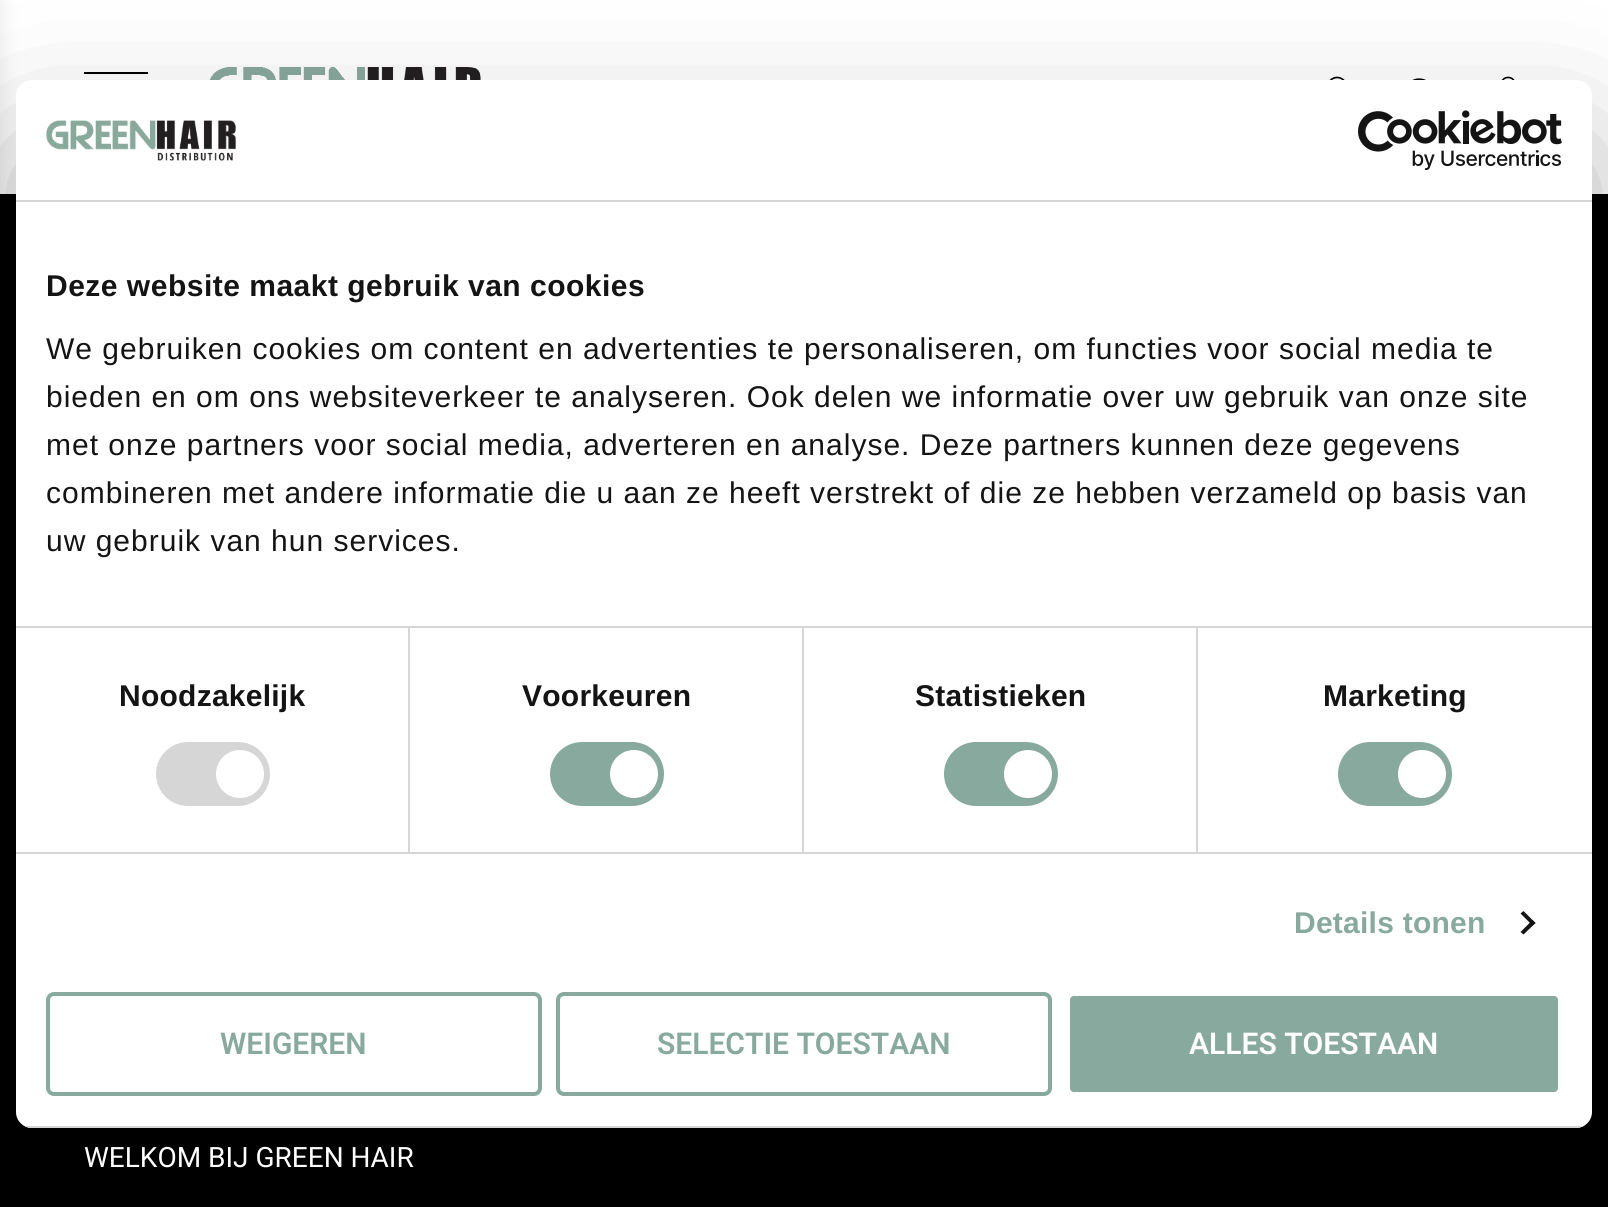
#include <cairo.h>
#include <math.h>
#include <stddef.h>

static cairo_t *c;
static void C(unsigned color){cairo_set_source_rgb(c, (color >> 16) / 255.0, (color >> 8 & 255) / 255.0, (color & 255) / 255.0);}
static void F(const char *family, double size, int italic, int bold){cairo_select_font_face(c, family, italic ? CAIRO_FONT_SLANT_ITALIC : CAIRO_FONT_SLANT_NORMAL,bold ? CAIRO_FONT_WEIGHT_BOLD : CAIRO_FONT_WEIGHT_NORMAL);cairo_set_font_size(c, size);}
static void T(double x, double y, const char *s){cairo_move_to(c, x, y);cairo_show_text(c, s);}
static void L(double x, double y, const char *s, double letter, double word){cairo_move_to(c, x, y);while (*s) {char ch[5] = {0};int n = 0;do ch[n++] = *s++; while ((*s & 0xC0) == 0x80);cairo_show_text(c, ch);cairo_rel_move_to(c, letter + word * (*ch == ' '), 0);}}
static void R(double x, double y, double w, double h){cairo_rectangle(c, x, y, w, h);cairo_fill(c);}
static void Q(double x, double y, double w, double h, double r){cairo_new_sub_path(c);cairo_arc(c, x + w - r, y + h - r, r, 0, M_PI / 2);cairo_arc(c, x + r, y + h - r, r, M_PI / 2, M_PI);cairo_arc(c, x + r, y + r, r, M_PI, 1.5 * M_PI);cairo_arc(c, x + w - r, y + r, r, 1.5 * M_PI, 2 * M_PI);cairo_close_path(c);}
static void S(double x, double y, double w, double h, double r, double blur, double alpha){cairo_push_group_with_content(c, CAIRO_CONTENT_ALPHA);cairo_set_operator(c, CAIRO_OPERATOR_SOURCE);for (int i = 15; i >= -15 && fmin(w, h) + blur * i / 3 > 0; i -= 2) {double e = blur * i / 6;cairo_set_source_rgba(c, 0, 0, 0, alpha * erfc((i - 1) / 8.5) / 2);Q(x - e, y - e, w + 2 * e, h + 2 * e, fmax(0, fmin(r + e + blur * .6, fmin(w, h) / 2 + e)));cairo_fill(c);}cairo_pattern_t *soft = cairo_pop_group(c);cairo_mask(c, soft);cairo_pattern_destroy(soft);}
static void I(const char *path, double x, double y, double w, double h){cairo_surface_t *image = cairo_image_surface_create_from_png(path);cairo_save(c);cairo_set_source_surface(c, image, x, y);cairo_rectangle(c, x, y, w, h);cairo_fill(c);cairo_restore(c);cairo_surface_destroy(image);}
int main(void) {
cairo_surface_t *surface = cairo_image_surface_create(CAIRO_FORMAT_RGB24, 1608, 1207);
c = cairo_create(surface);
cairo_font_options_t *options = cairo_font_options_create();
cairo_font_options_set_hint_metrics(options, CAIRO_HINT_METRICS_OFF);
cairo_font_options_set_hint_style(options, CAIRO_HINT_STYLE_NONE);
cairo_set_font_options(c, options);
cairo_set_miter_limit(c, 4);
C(0x000000);
cairo_paint(c);
C(0xffffff);
R(0,0,1608,194);
C(0x000000);
cairo_new_path(c);
cairo_move_to(c,84,72);
cairo_line_to(c,148,72);
cairo_line_to(c,148,74);
cairo_line_to(c,84,74);
cairo_close_path(c);
cairo_move_to(c,84,88);
cairo_line_to(c,148,88);
cairo_line_to(c,148,90);
cairo_line_to(c,84,90);
cairo_close_path(c);
cairo_move_to(c,84,104);
cairo_line_to(c,126,104);
cairo_line_to(c,126,106);
cairo_line_to(c,84,106);
cairo_close_path(c);
cairo_fill(c);
I("3.png",209,67,272,13);
I("4.png",1329,76,16,4);
I("5.png",1412,78,14,2);
I("6.png",1501,76,14,4);
C(0x000000);
S(16,144,1576,1048,16,68,.3);
S(-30,0,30,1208,0,10,.1);
C(0xffffff);
Q(16,80,1576,1048,16);
cairo_fill(c);
C(0xd6d6d6);
R(16,200,1576,2);
I("1.png",46,120,190,41);
I("2.png",1358,110,204,60);
R(16,626,1576,2);
F("Liberation Sans",30,0,1);
C(0x141414);
L(46,296,"Deze website maakt gebruik van cookies",.5,0);
F("Liberation Sans",30,0,0);
L(46,359,"We gebruiken cookies om content en advertenties te personaliseren, om functies voor social media te",1,0);
L(46,407,"bieden en om ons websiteverkeer te analyseren. Ook delen we informatie over uw gebruik van onze site",1,0);
L(46,455,"met onze partners voor social media, adverteren en analyse. Deze partners kunnen deze gegevens",1,0);
L(46,503,"combineren met andere informatie die u aan ze heeft verstrekt of die ze hebben verzameld op basis van",1,0);
L(46,551,"uw gebruik van hun services.",1,0);
C(0xd6d6d6);
R(16,852,1576,2);
R(408,628,2,224);
F("Liberation Sans",30,0,1);
C(0x141414);
L(119,706,"Noodzakelijk",.25,0);
C(0xd6d6d6);
Q(156,742,114,64,32);
cairo_fill(c);
C(0xffffff);
cairo_arc(c,240,774,24,0,2 * M_PI);
cairo_fill(c);
C(0xd6d6d6);
R(802,628,2,224);
C(0x141414);
L(522,706,"Voorkeuren",.25,0);
C(0x88a99d);
Q(550,742,114,64,32);
cairo_fill(c);
C(0xffffff);
cairo_arc(c,634,774,24,0,2 * M_PI);
cairo_fill(c);
C(0xd6d6d6);
R(1196,628,2,224);
C(0x141414);
L(915,706,"Statistieken",.25,0);
C(0x88a99d);
Q(944,742,114,64,32);
cairo_fill(c);
C(0xffffff);
cairo_arc(c,1028,774,24,0,2 * M_PI);
cairo_fill(c);
C(0x141414);
L(1323,706,"Marketing",.25,0);
C(0x88a99d);
Q(1338,742,114,64,32);
cairo_fill(c);
C(0xffffff);
cairo_arc(c,1422,774,24,0,2 * M_PI);
cairo_fill(c);
C(0x88a99d);
L(1294,933,"Details tonen",.25,0);
C(0x141414);
cairo_new_path(c);
cairo_move_to(c,1523.5,911);
cairo_line_to(c,1535.5,923);
cairo_line_to(c,1532.5,925.5);
cairo_line_to(c,1520.5,913.5);
cairo_close_path(c);
cairo_fill(c);
cairo_new_path(c);
cairo_move_to(c,1532.5,920);
cairo_line_to(c,1535.5,923);
cairo_line_to(c,1523.5,934.5);
cairo_line_to(c,1520.5,932);
cairo_close_path(c);
cairo_fill(c);
cairo_save(c);
Q(16,80,1576,1048,16);
cairo_clip(c);
C(0xd6d6d6);
R(16,1126,1576,2);
cairo_restore(c);
Q(48,994,492,100,6);
C(0x88a99d);
cairo_set_line_width(c,4);
cairo_stroke(c);
F("Roboto SemiBold",30,0,0);
T(220,1054,"WEIGEREN");
Q(558,994,492,100,6);
cairo_stroke(c);
T(657,1054,"SELECTIE TOESTAAN");
Q(1068,994,492,100,6);
cairo_fill_preserve(c);
C(0xffffff);
cairo_stroke(c);
T(1189,1054,"ALLES TOESTAAN");
F("Roboto",28,0,0);
T(84,1167,"WELKOM BIJ GREEN HAIR");
cairo_surface_write_to_png(surface, "o.png");
cairo_font_options_destroy(options);
cairo_destroy(c);
cairo_surface_destroy(surface);
return 0;
}
